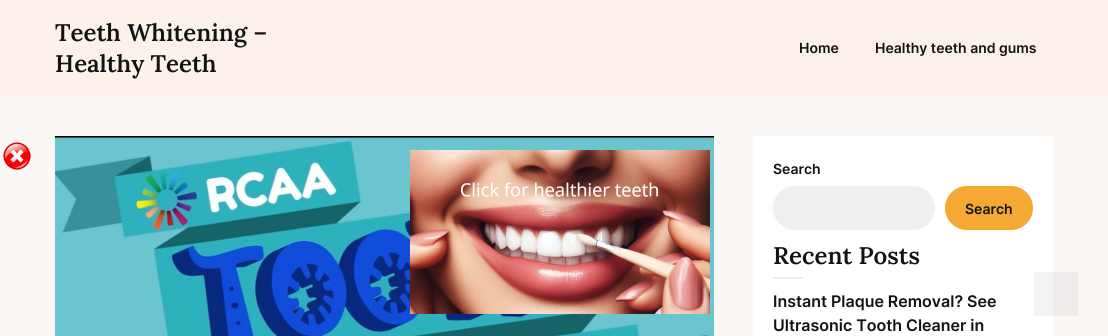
#include <cairo.h>
#include <math.h>
#include <stddef.h>

static cairo_t *c;
static void C(unsigned color){cairo_set_source_rgb(c, (color >> 16) / 255.0, (color >> 8 & 255) / 255.0, (color & 255) / 255.0);}
static void F(const char *family, double size, int italic, int bold){cairo_select_font_face(c, family, italic ? CAIRO_FONT_SLANT_ITALIC : CAIRO_FONT_SLANT_NORMAL,bold ? CAIRO_FONT_WEIGHT_BOLD : CAIRO_FONT_WEIGHT_NORMAL);cairo_set_font_size(c, size);}
static void T(double x, double y, const char *s){cairo_move_to(c, x, y);cairo_show_text(c, s);}
static void R(double x, double y, double w, double h){cairo_rectangle(c, x, y, w, h);cairo_fill(c);}
static void Q(double x, double y, double w, double h, double r){cairo_new_sub_path(c);cairo_arc(c, x + w - r, y + h - r, r, 0, M_PI / 2);cairo_arc(c, x + r, y + h - r, r, M_PI / 2, M_PI);cairo_arc(c, x + r, y + r, r, M_PI, 1.5 * M_PI);cairo_arc(c, x + w - r, y + r, r, 1.5 * M_PI, 2 * M_PI);cairo_close_path(c);}
static void I(const char *path, double x, double y, double w, double h){cairo_surface_t *image = cairo_image_surface_create_from_png(path);cairo_save(c);cairo_set_source_surface(c, image, x, y);cairo_rectangle(c, x, y, w, h);cairo_fill(c);cairo_restore(c);cairo_surface_destroy(image);}
int main(void) {
cairo_surface_t *surface = cairo_image_surface_create(CAIRO_FORMAT_RGB24, 1108, 336);
c = cairo_create(surface);
cairo_font_options_t *options = cairo_font_options_create();
cairo_font_options_set_hint_metrics(options, CAIRO_HINT_METRICS_OFF);
cairo_font_options_set_hint_style(options, CAIRO_HINT_STYLE_NONE);
cairo_set_font_options(c, options);
cairo_set_miter_limit(c, 4);
C(0xfbf7f5);
cairo_paint(c);
C(0xfcf1ea);
R(0,0,1108,96);
F("Lora SemiBold",24,0,0);
C(0x111314);
T(55,41,"Teeth Whitening –");
T(55,72,"Healthy Teeth");
F("Inter SemiBold",14,0,0);
T(799,53,"Home");
T(875,53,"Healthy teeth and gums");
I("1.png",3,142,28,28);
I("3.png",55,136,659,200);
I("2.png",410,150,300,164);
C(0xffffff);
R(753,136,300,200);
C(0x111314);
T(773,174,"Search");
C(0xefefef);
Q(773,186,162,44,22);
cairo_fill(c);
C(0xf5a834);
Q(945,186,88,44,22);
cairo_fill(c);
C(0x111314);
T(965,214,"Search");
F("Lora SemiBold",24,0,0);
T(773,264,"Recent Posts");
C(0xefefef);
R(773,277,30,2);
F("Inter SemiBold",16,0,0);
C(0x111314);
T(773,307,"Instant Plaque Removal? See");
T(773,331,"Ultrasonic Tooth Cleaner in");
cairo_set_source_rgba(c,0.067,0.075,0.078,0.05);
R(1034,272,44,44);
cairo_surface_write_to_png(surface, "o.png");
cairo_font_options_destroy(options);
cairo_destroy(c);
cairo_surface_destroy(surface);
return 0;
}
